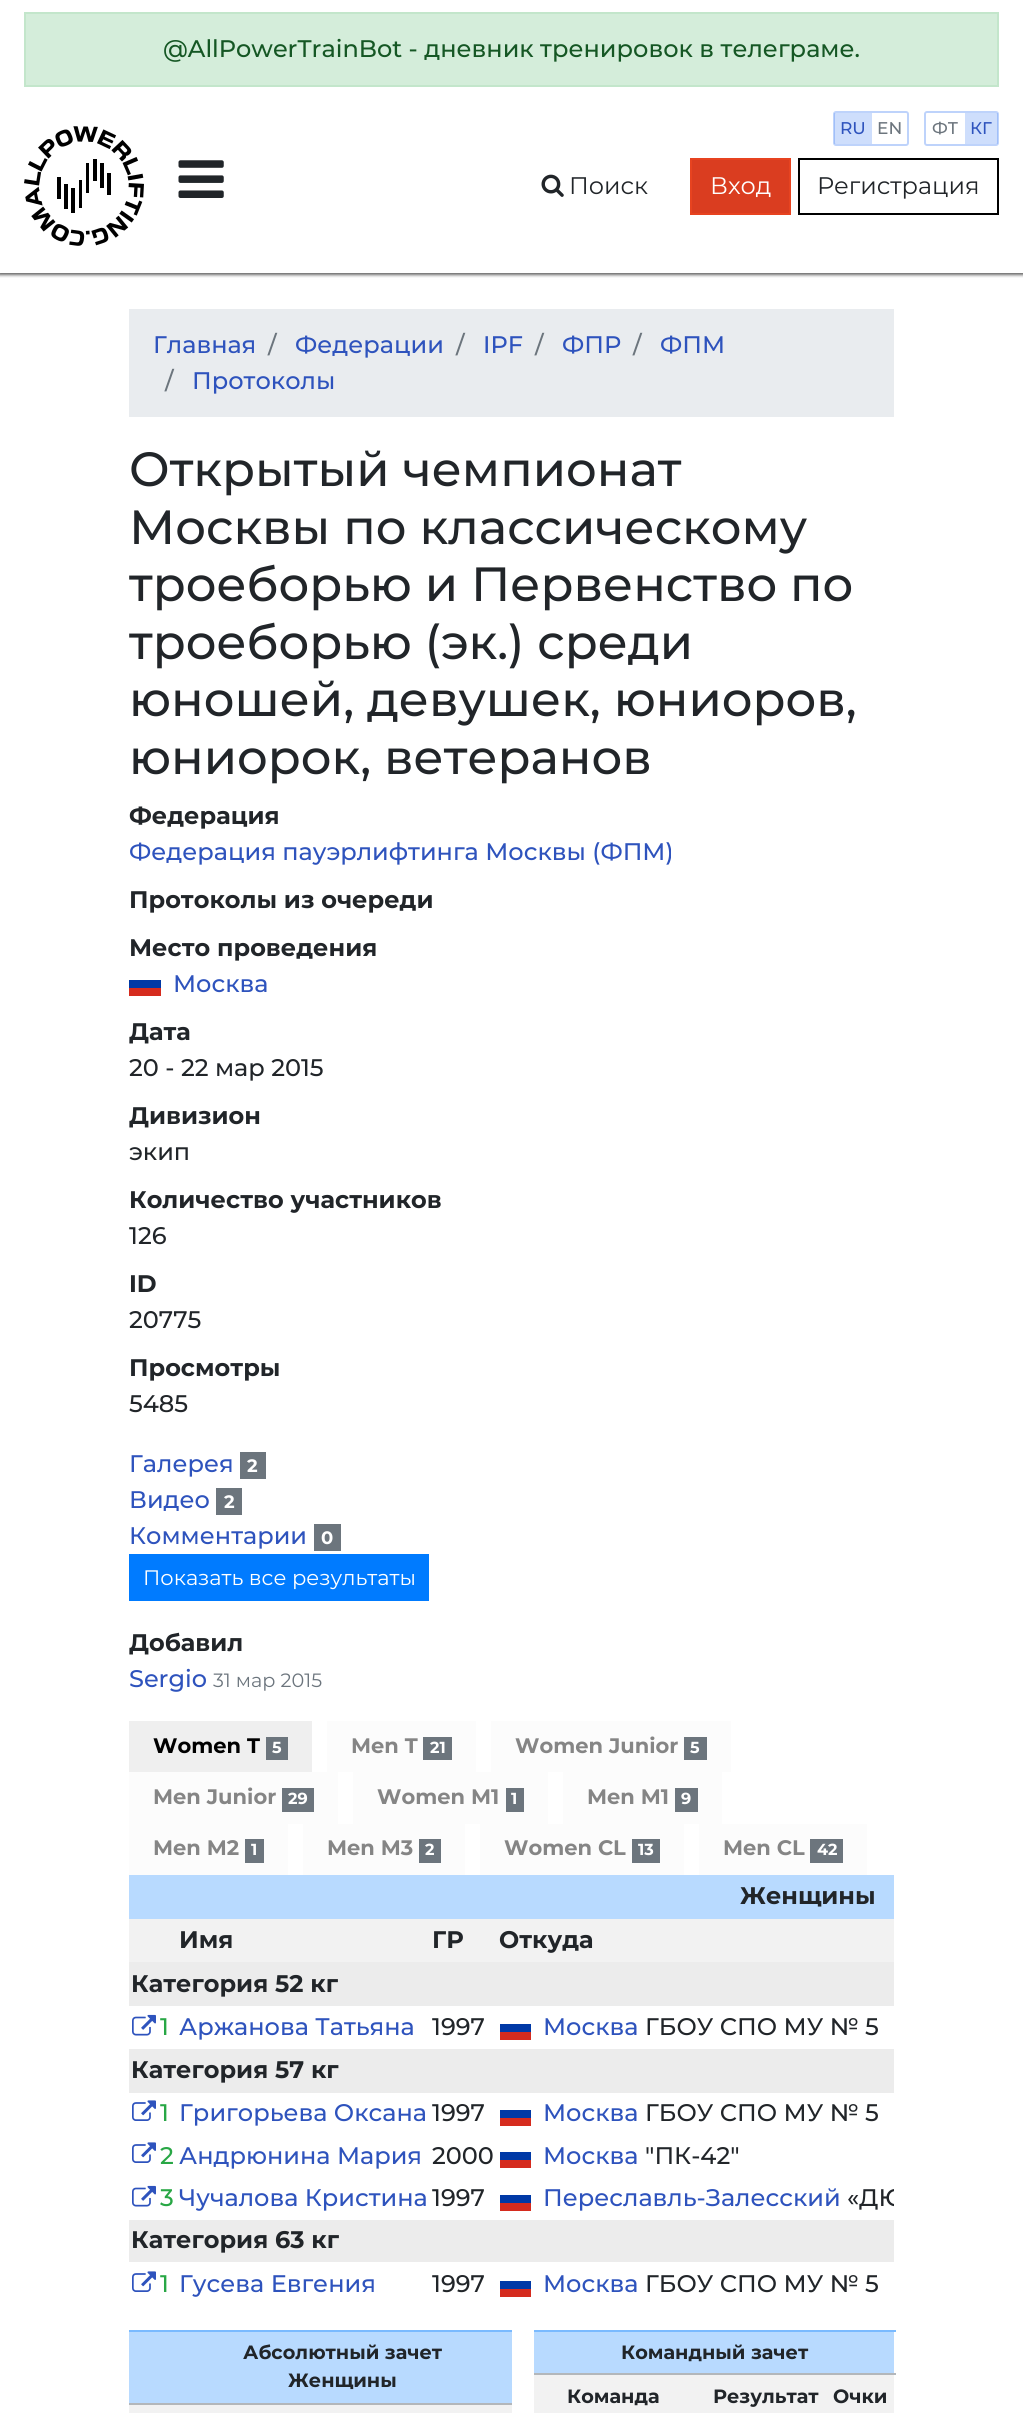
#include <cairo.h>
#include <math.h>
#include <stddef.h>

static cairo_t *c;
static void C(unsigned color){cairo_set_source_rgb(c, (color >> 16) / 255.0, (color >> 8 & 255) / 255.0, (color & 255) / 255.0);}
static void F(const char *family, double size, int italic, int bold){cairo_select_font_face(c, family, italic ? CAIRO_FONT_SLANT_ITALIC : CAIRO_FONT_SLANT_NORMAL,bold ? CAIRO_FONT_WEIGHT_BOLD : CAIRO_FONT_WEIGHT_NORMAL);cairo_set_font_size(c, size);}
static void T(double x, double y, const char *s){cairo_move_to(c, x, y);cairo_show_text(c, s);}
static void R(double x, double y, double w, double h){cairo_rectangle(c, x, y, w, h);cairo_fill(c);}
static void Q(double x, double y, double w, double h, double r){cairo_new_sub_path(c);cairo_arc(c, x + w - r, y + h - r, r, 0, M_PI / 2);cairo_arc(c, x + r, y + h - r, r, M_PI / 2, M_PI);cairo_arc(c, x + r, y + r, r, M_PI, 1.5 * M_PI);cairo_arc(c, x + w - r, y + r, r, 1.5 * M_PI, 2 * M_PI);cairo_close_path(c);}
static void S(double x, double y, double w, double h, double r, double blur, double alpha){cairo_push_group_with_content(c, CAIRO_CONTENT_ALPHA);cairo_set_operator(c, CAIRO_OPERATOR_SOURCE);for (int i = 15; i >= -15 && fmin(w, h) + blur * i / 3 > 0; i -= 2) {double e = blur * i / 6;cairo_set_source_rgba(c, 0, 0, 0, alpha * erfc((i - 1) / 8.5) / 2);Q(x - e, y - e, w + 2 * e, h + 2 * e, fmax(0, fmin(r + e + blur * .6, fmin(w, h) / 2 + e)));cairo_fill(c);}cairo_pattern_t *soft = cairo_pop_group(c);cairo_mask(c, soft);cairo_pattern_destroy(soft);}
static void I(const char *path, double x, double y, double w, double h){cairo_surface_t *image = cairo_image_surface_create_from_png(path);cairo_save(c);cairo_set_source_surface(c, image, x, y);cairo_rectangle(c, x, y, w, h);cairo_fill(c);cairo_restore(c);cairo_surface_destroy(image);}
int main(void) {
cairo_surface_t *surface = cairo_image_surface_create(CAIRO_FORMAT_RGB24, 1023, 2413);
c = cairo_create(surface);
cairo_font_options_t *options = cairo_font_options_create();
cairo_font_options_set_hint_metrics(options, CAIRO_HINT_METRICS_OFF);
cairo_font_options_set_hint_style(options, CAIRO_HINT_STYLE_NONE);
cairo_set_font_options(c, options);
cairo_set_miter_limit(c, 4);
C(0xffffff);
cairo_paint(c);
cairo_save(c);
cairo_rectangle(c,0,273,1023,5);
cairo_clip(c);
C(0x000000);
S(-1,-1,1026,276,0,1.5,.6);
cairo_restore(c);
C(0xd4edda);
cairo_rectangle(c,25,13,973,73);
cairo_fill_preserve(c);
C(0xc3e6cb);
cairo_stroke(c);
F("Montserrat Medium",24,0,0);
C(0x155724);
T(163,57,"@AllPowerTrainBot - дневник тренировок в телеграме.");
I("1.png",24,126,120,120);
I("2.png",178,160,46,38);
Q(834,112,74,33,2);
C(0xbed3fb);
cairo_stroke(c);
cairo_set_source_rgba(c,0.361,0.565,0.961,0.3);
R(834,113,38,31);
F("Montserrat Medium",17,0,0);
C(0x2e53bd);
T(840,134,"RU");
C(0x6c757d);
T(877,134,"EN");
Q(925,112,73,33,2);
C(0xbed3fb);
cairo_stroke(c);
C(0x6c757d);
T(932,134,"ФТ");
cairo_set_source_rgba(c,0.361,0.565,0.961,0.3);
R(965,113,33,31);
C(0x2e53bd);
T(970,134,"КГ");
I("3.png",541,174,23,23);
F("Montserrat",24,0,0);
C(0x212529);
T(569,194,"Поиск");
C(0xda3d20);
cairo_rectangle(c,691,159,99,55);
cairo_fill_preserve(c);
C(0xe74320);
cairo_stroke(c);
C(0xffffff);
T(710,194,"Вход");
cairo_rectangle(c,799,159,199,55);
C(0x000000);
cairo_stroke(c);
C(0x212529);
T(817,194,"Регистрация");
C(0xe9ecef);
R(129,309,765,108);
F("Montserrat Medium",24,0,0);
C(0x2e53bd);
T(153,353,"Главная");
C(0x6c757d);
T(268,353,"/");
C(0x2e53bd);
T(295,353,"Федерации");
C(0x6c757d);
T(456,353,"/");
C(0x2e53bd);
T(483,353,"IPF");
C(0x6c757d);
T(535,353,"/");
C(0x2e53bd);
T(562,353,"ФПР");
C(0x6c757d);
T(633,353,"/");
C(0x2e53bd);
T(660,353,"ФПМ");
C(0x6c757d);
T(165,389,"/");
C(0x2e53bd);
T(192,389,"Протоколы");
F("Montserrat Medium",48,0,0);
C(0x212529);
T(129,486,"Открытый чемпионат");
T(129,544,"Москвы по классическому");
T(129,601,"троеборью и Первенство по");
T(129,659,"троеборью (эк.) среди");
T(129,716,"юношей, девушек, юниоров,");
T(129,774,"юниорок, ветеранов");
F("Montserrat",24,0,1);
T(129,824,"Федерация");
F("Montserrat Medium",24,0,0);
C(0x2e53bd);
T(129,860,"Федерация пауэрлифтинга Москвы (ФПМ)");
F("Montserrat",24,0,1);
C(0x212529);
T(129,908,"Протоколы из очереди");
T(129,956,"Место проведения");
C(0x0039a6);
R(129,980,32,8);
C(0xd52b1e);
R(129,988,32,8);
F("Montserrat Medium",24,0,0);
C(0x2e53bd);
T(173,992,"Москва");
F("Montserrat",24,0,1);
C(0x212529);
T(129,1040,"Дата");
F("Montserrat Medium",24,0,0);
T(129,1076,"20 - 22 мар 2015");
F("Montserrat",24,0,1);
T(129,1124,"Дивизион");
F("Montserrat Medium",24,0,0);
T(129,1160,"экип");
F("Montserrat",24,0,1);
T(129,1208,"Количество участников");
F("Montserrat Medium",24,0,0);
T(129,1244,"126");
F("Montserrat",24,0,1);
T(129,1292,"ID");
F("Montserrat Medium",24,0,0);
T(129,1328,"20775");
F("Montserrat",24,0,1);
T(129,1376,"Просмотры");
F("Montserrat Medium",24,0,0);
T(129,1412,"5485");
C(0x2e53bd);
T(129,1472,"Галерея");
C(0x6c757d);
R(240,1452,26,27);
F("Montserrat",18,0,1);
C(0xffffff);
T(247,1472,"2");
F("Montserrat Medium",24,0,0);
C(0x2e53bd);
T(129,1508,"Видео");
C(0x6c757d);
R(216,1488,26,27);
F("Montserrat",18,0,1);
C(0xffffff);
T(224,1508,"2");
F("Montserrat Medium",24,0,0);
C(0x2e53bd);
T(129,1544,"Комментарии");
C(0x6c757d);
R(314,1524,27,27);
F("Montserrat",18,0,1);
C(0xffffff);
T(321,1544,"0");
C(0x007bff);
R(129,1554,300,47);
F("Montserrat",21,0,0);
C(0xffffff);
T(143,1585,"Показать все результаты");
F("Montserrat",24,0,1);
C(0x212529);
T(129,1651,"Добавил");
F("Montserrat Medium",24,0,0);
C(0x2e53bd);
T(129,1687,"Sergio");
F("Montserrat",19.25,0,0);
C(0x6c757d);
T(213,1687,"31 мар 2015");
C(0xefefef);
R(129,1721,183,51);
F("Montserrat",21,0,1);
C(0x000000);
T(153,1753,"Women T");
C(0x6c757d);
R(266,1737,22,23);
F("Montserrat",16,0,1);
C(0xffffff);
T(272,1753,"5");
C(0xfcfcfc);
R(327,1721,149,51);
F("Montserrat",21,0,1);
C(0x858585);
T(351,1753,"Men T");
C(0x6c757d);
R(423,1737,29,23);
F("Montserrat",16,0,1);
C(0xffffff);
T(430,1753,"21");
C(0xfcfcfc);
R(491,1721,240,51);
F("Montserrat",21,0,1);
C(0x858585);
T(515,1753,"Women Junior");
C(0x6c757d);
R(684,1737,23,23);
F("Montserrat",16,0,1);
C(0xffffff);
T(690,1753,"5");
C(0xfcfcfc);
R(129,1772,209,52);
F("Montserrat",21,0,1);
C(0x858585);
T(153,1804,"Men Junior");
C(0x6c757d);
R(282,1788,32,24);
F("Montserrat",16,0,1);
C(0xffffff);
T(288,1804,"29");
C(0xfcfcfc);
R(353,1772,195,52);
F("Montserrat",21,0,1);
C(0x858585);
T(377,1804,"Women M1");
C(0x6c757d);
R(506,1788,18,24);
F("Montserrat",16,0,1);
C(0xffffff);
T(511,1804,"1");
C(0xfcfcfc);
R(563,1772,159,52);
F("Montserrat",21,0,1);
C(0x858585);
T(587,1804,"Men M1");
C(0x6c757d);
R(675,1788,23,24);
F("Montserrat",16,0,1);
C(0xffffff);
T(681,1804,"9");
C(0xfcfcfc);
R(129,1824,159,51);
F("Montserrat",21,0,1);
C(0x858585);
T(153,1855,"Men M2");
C(0x6c757d);
R(245,1839,19,24);
F("Montserrat",16,0,1);
C(0xffffff);
T(251,1855,"1");
C(0xfcfcfc);
R(303,1824,162,51);
F("Montserrat",21,0,1);
C(0x858585);
T(327,1855,"Men M3");
C(0x6c757d);
R(419,1839,22,24);
F("Montserrat",16,0,1);
C(0xffffff);
T(425,1855,"2");
C(0xfcfcfc);
R(480,1824,204,51);
F("Montserrat",21,0,1);
C(0x858585);
T(504,1855,"Women CL");
C(0x6c757d);
R(632,1839,28,24);
F("Montserrat",16,0,1);
C(0xffffff);
T(638,1855,"13");
C(0xfcfcfc);
R(699,1824,168,51);
F("Montserrat",21,0,1);
C(0x858585);
T(723,1855,"Men CL");
C(0x6c757d);
R(810,1839,33,24);
F("Montserrat",16,0,1);
C(0xffffff);
T(817,1855,"42");
C(0xb8daff);
R(129,1875,765,44);
F("Montserrat",24,0,1);
C(0x212529);
T(740,1904,"Женщины");
C(0xf2f2f2);
R(129,1919,765,43);
C(0x212529);
T(179,1948,"Имя");
T(432,1948,"ГР");
T(499,1948,"Откуда");
C(0xececec);
R(129,1962,765,44);
C(0x212529);
T(131,1992,"Категория 52 кг");
I("4.png",132,2014,24,22);
F("Montserrat Medium",24,0,0);
C(0x28a745);
T(160,2035,"1");
C(0x2e53bd);
T(179,2035,"Аржанова Татьяна");
C(0x212529);
T(432,2035,"1997");
C(0x0039a6);
R(500,2024,31,8);
C(0xd52b1e);
R(500,2032,31,8);
C(0x2e53bd);
T(543,2035,"Москва");
C(0x212529);
T(645,2035,"ГБОУ СПО МУ № 5");
C(0xececec);
R(129,2049,765,44);
F("Montserrat",24,0,1);
C(0x212529);
T(131,2078,"Категория 57 кг");
I("5.png",132,2100,24,21);
F("Montserrat Medium",24,0,0);
C(0x28a745);
T(160,2121,"1");
C(0x2e53bd);
T(179,2121,"Григорьева Оксана");
C(0x212529);
T(432,2121,"1997");
C(0x0039a6);
R(500,2110,31,8);
C(0xd52b1e);
R(500,2118,31,8);
C(0x2e53bd);
T(543,2121,"Москва");
C(0x212529);
T(645,2121,"ГБОУ СПО МУ № 5");
I("5.png",132,2142,24,21);
C(0x28a745);
T(160,2164,"2");
C(0x2e53bd);
T(179,2164,"Андрюнина Мария");
C(0x212529);
T(432,2164,"2000");
C(0x0039a6);
R(500,2152,31,8);
C(0xd52b1e);
R(500,2160,31,8);
C(0x2e53bd);
T(543,2164,"Москва");
C(0x212529);
T(645,2164,"\"ПК-42\"");
I("4.png",132,2185,24,22);
C(0x28a745);
T(160,2206,"3");
C(0x2e53bd);
T(179,2206,"Чучалова Кристина");
C(0x212529);
T(432,2206,"1997");
C(0x0039a6);
R(500,2195,31,8);
C(0xd52b1e);
R(500,2203,31,8);
C(0x2e53bd);
T(543,2206,"Переславль-Залесский");
cairo_save(c);
cairo_rectangle(c,129,1875,765,431);
cairo_clip(c);
C(0x212529);
T(847,2206,"«ДЮ");
cairo_restore(c);
C(0xececec);
R(129,2220,765,42);
F("Montserrat",24,0,1);
C(0x212529);
T(131,2248,"Категория 63 кг");
I("5.png",132,2271,24,21);
F("Montserrat Medium",24,0,0);
C(0x28a745);
T(160,2292,"1");
C(0x2e53bd);
T(179,2292,"Гусева Евгения");
C(0x212529);
T(432,2292,"1997");
C(0x0039a6);
R(500,2281,31,8);
C(0xd52b1e);
R(500,2289,31,8);
C(0x2e53bd);
T(543,2292,"Москва");
C(0x212529);
T(645,2292,"ГБОУ СПО МУ № 5");
C(0xb8daff);
R(129,2332,383,71);
C(0x7abaff);
R(129,2330,383,2);
F("Montserrat",19.25,0,1);
C(0x212529);
T(243,2359,"Абсолютный зачет");
T(288,2387,"Женщины");
C(0xf2f2f2);
R(129,2405,383,8);
C(0xb3b7bb);
R(129,2403,383,2);
C(0xb8daff);
R(534,2332,360,41);
C(0x7abaff);
R(534,2330,362,2);
C(0x212529);
T(621,2359,"Командный зачет");
C(0xf2f2f2);
R(534,2375,360,38);
C(0x212529);
T(567,2403,"Команда");
T(713,2403,"Результат");
C(0xb3b7bb);
R(534,2373,362,2);
C(0x212529);
T(833,2403,"Очки");
cairo_surface_write_to_png(surface, "o.png");
cairo_font_options_destroy(options);
cairo_destroy(c);
cairo_surface_destroy(surface);
return 0;
}
